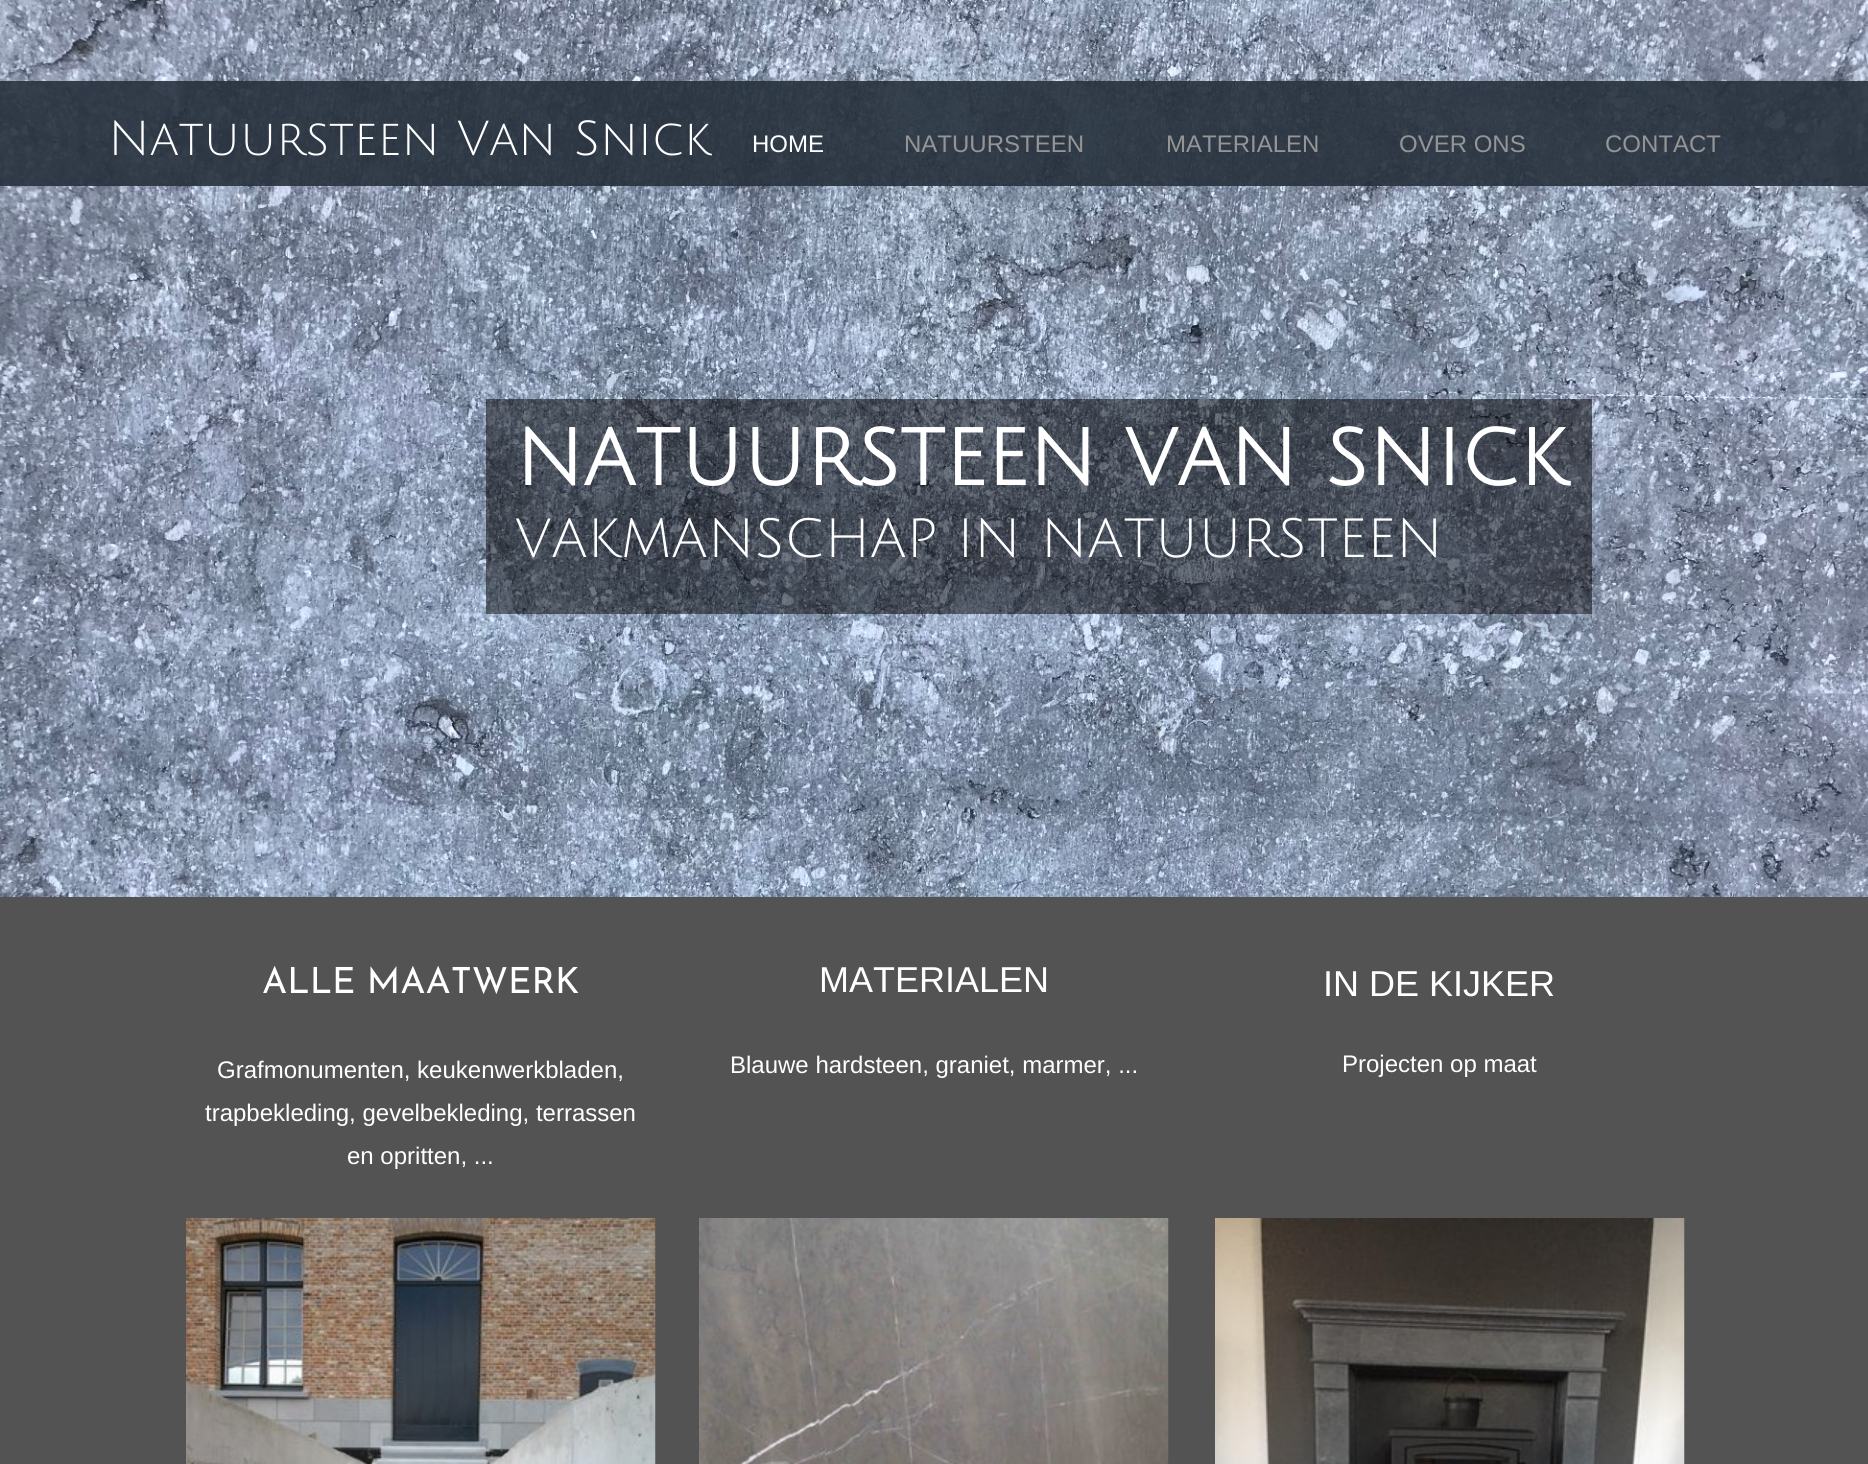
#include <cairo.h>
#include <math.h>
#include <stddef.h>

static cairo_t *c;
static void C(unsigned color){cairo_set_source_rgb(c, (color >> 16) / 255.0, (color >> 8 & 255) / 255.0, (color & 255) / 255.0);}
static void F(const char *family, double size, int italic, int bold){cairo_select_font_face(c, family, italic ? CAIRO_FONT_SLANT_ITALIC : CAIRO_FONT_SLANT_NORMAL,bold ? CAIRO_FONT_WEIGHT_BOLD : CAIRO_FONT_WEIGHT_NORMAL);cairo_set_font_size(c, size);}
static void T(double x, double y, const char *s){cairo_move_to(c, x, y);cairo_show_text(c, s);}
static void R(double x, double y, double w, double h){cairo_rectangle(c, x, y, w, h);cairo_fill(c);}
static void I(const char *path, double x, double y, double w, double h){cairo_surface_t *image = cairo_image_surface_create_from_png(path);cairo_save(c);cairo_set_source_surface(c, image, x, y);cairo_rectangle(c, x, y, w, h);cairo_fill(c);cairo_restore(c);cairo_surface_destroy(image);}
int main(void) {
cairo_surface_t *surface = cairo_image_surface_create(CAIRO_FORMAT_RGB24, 1868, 1464);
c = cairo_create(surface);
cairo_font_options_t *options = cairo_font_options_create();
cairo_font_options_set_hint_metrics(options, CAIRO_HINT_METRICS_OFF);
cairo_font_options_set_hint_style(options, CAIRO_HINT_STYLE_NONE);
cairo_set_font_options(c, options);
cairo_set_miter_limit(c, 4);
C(0x535353);
cairo_paint(c);
I("1.png",0,0,1868,897);
cairo_set_source_rgba(c,0.153,0.192,0.243,0.9);
R(0,81,1868,105);
F("Julius Sans One",48,0,0);
C(0xffffff);
T(108,155,"Natuursteen Van Snick");
F("Liberation Sans",24,0,0);
T(752,152,"HOME");
C(0x959595);
T(904,152,"NATUURSTEEN");
T(1166,152,"MATERIALEN");
T(1399,152,"OVER ONS");
T(1605,152,"CONTACT");
cairo_set_source_rgba(c,0,0,0,0.5);
R(486,399,1106,215);
F("Julius Sans One",78,0,1);
C(0xffffff);
T(515,485,"NATUURSTEEN VAN SNICK");
F("Julius Sans One",54,0,0);
T(515,557,"VAKMANSCHAP IN NATUURSTEEN");
F("Josefin Sans",36,0,0);
T(262,993,"ALLE MAATWERK");
F("Liberation Sans",24,0,0);
T(217,1078,"Grafmonumenten, keukenwerkbladen,");
T(205,1121,"trapbekleding, gevelbekleding, terrassen");
T(347,1164,"en opritten, ...");
I("2.png",186,1218,470,246);
F("Liberation Sans",36,0,0);
T(819,992,"MATERIALEN");
F("Liberation Sans",24,0,0);
T(730,1073,"Blauwe hardsteen, graniet, marmer, ...");
F("Liberation Sans",36,0,0);
T(1323,996,"IN DE KIJKER");
F("Liberation Sans",24,0,0);
T(1342,1072,"Projecten op maat");
I("3.png",1215,1218,470,246);
I("4.png",699,1218,470,246);
cairo_surface_write_to_png(surface, "o.png");
cairo_font_options_destroy(options);
cairo_destroy(c);
cairo_surface_destroy(surface);
return 0;
}
